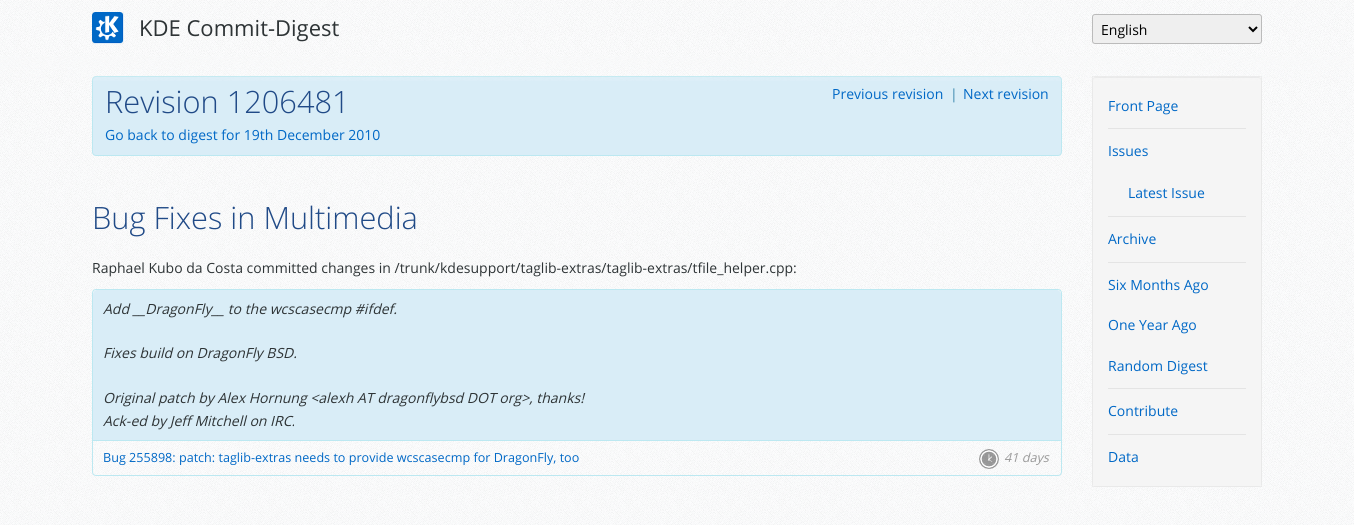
#include <cairo.h>
#include <math.h>
#include <stddef.h>

static cairo_t *c;
static void C(unsigned color){cairo_set_source_rgb(c, (color >> 16) / 255.0, (color >> 8 & 255) / 255.0, (color & 255) / 255.0);}
static void F(const char *family, double size, int italic, int bold){cairo_select_font_face(c, family, italic ? CAIRO_FONT_SLANT_ITALIC : CAIRO_FONT_SLANT_NORMAL,bold ? CAIRO_FONT_WEIGHT_BOLD : CAIRO_FONT_WEIGHT_NORMAL);cairo_set_font_size(c, size);}
static void T(double x, double y, const char *s){cairo_move_to(c, x, y);cairo_show_text(c, s);}
static void R(double x, double y, double w, double h){cairo_rectangle(c, x, y, w, h);cairo_fill(c);}
static void Q(double x, double y, double w, double h, double r){cairo_new_sub_path(c);cairo_arc(c, x + w - r, y + h - r, r, 0, M_PI / 2);cairo_arc(c, x + r, y + h - r, r, M_PI / 2, M_PI);cairo_arc(c, x + r, y + r, r, M_PI, 1.5 * M_PI);cairo_arc(c, x + w - r, y + r, r, 1.5 * M_PI, 2 * M_PI);cairo_close_path(c);}
static void I(const char *path, double x, double y, double w, double h){cairo_surface_t *image = cairo_image_surface_create_from_png(path);cairo_save(c);cairo_set_source_surface(c, image, x, y);cairo_rectangle(c, x, y, w, h);cairo_fill(c);cairo_restore(c);cairo_surface_destroy(image);}
int main(void) {
cairo_surface_t *surface = cairo_image_surface_create(CAIRO_FORMAT_RGB24, 1354, 525);
c = cairo_create(surface);
cairo_font_options_t *options = cairo_font_options_create();
cairo_font_options_set_hint_metrics(options, CAIRO_HINT_METRICS_OFF);
cairo_font_options_set_hint_style(options, CAIRO_HINT_STYLE_NONE);
cairo_set_font_options(c, options);
cairo_set_miter_limit(c, 4);
C(0xffffff);
cairo_paint(c);
I("1.png",0,0,1354,525);
C(0xd9edf7);
Q(92.5,76.5,969,79,3.5);
cairo_fill_preserve(c);
C(0xbce8f1);
cairo_set_line_width(c,1);
cairo_stroke(c);
C(0xf5f5f5);
Q(1092,76,170,411,4);
cairo_fill(c);
C(0xe9e9e9);
cairo_new_path(c);
cairo_move_to(c,1096,78);
cairo_line_to(c,1258,78);
cairo_curve_to(c,1260,78,1261,79,1261,81);
cairo_line_to(c,1261,80);
cairo_curve_to(c,1261,78,1260,77,1258,77);
cairo_line_to(c,1096,77);
cairo_curve_to(c,1094,77,1093,78,1093,80);
cairo_line_to(c,1093,81);
cairo_curve_to(c,1093,79,1094,78,1096,78);
cairo_close_path(c);
cairo_fill(c);
cairo_rectangle(c,1092.5,76.5,169,410);
cairo_set_source_rgba(c,0,0,0,0.05);
cairo_stroke(c);
I("2.png",0,56,1354,25);
I("3.png",0,34,1354,22);
I("4.png",92,12,32,32);
F("Open Sans",22,0,0);
C(0x2e3436);
T(139,36,"KDE Commit-Digest");
C(0xefefef);
Q(1092.5,14.5,169,29,2.5);
cairo_fill_preserve(c);
C(0xbbbbbb);
cairo_stroke(c);
cairo_new_path(c);
cairo_move_to(c,1249,27);
cairo_line_to(c,1253,31);
cairo_line_to(c,1257,27);
C(0x000000);
cairo_set_line_width(c,2);
cairo_stroke(c);
F("Open Sans",14,0,0);
T(1101,35,"English");
F("Open Sans Light",30.75,0,0);
C(0x204a87);
T(105,113,"Revision 1206481");
F("Open Sans",14,0,0);
C(0x0068c6);
T(832,99,"Previous revision");
C(0x3a87ad);
T(950,99,"|");
C(0x0068c6);
T(963,99,"Next revision");
T(105,140,"Go back to digest for 19th December 2010");
F("Open Sans Light",30.75,0,0);
C(0x204a87);
T(92,229,"Bug Fixes in Multimedia");
F("Open Sans",14,0,0);
C(0x2e3436);
T(92,273,"Raphael Kubo da Costa committed changes in /trunk/kdesupport/taglib-extras/taglib-extras/tfile_helper.cpp:");
Q(92.5,289.5,969,186,3.5);
C(0xbce8f1);
cairo_set_line_width(c,1);
cairo_stroke(c);
C(0xd9edf7);
cairo_new_path(c);
cairo_move_to(c,97,290);
cairo_line_to(c,1057,290);
cairo_curve_to(c,1059,290,1061,292,1061,294);
cairo_line_to(c,1061,440);
cairo_line_to(c,93,440);
cairo_line_to(c,93,294);
cairo_curve_to(c,93,292,95,290,97,290);
cairo_close_path(c);
cairo_fill(c);
F("Open Sans",14,1,0);
C(0x2e3436);
T(103,314,"Add __DragonFly__ to the wcscasecmp #ifdef.");
T(103,358,"Fixes build on DragonFly BSD.");
T(103,403,"Original patch by Alex Hornung <alexh AT dragonflybsd DOT org>, thanks!");
T(103,426,"Ack-ed by Jeff Mitchell on IRC.");
C(0xbce8f1);
R(93,440,968,1);
F("Open Sans",12.6,0,0);
C(0x0068c6);
T(103,462,"Bug 255898: patch: taglib-extras needs to provide wcscasecmp for DragonFly, too");
I("5.png",979,449,20,20);
F("Open Sans",12.6,1,0);
C(0x999999);
T(1004,462,"41 days");
C(0xe4e4e4);
R(1108,128,138,1);
F("Open Sans",14,0,0);
C(0x0068c6);
T(1108,111,"Front Page");
C(0xe4e4e4);
R(1108,216,138,1);
C(0x0068c6);
T(1108,156,"Issues");
T(1128,198,"Latest Issue");
C(0xe4e4e4);
R(1108,262,138,1);
C(0x0068c6);
T(1108,244,"Archive");
T(1108,290,"Six Months Ago");
T(1108,330,"One Year Ago");
C(0xe4e4e4);
R(1108,388,138,1);
C(0x0068c6);
T(1108,371,"Random Digest");
C(0xe4e4e4);
R(1108,434,138,1);
C(0x0068c6);
T(1108,416,"Contribute");
T(1108,462,"Data");
cairo_surface_write_to_png(surface, "o.png");
cairo_font_options_destroy(options);
cairo_destroy(c);
cairo_surface_destroy(surface);
return 0;
}
